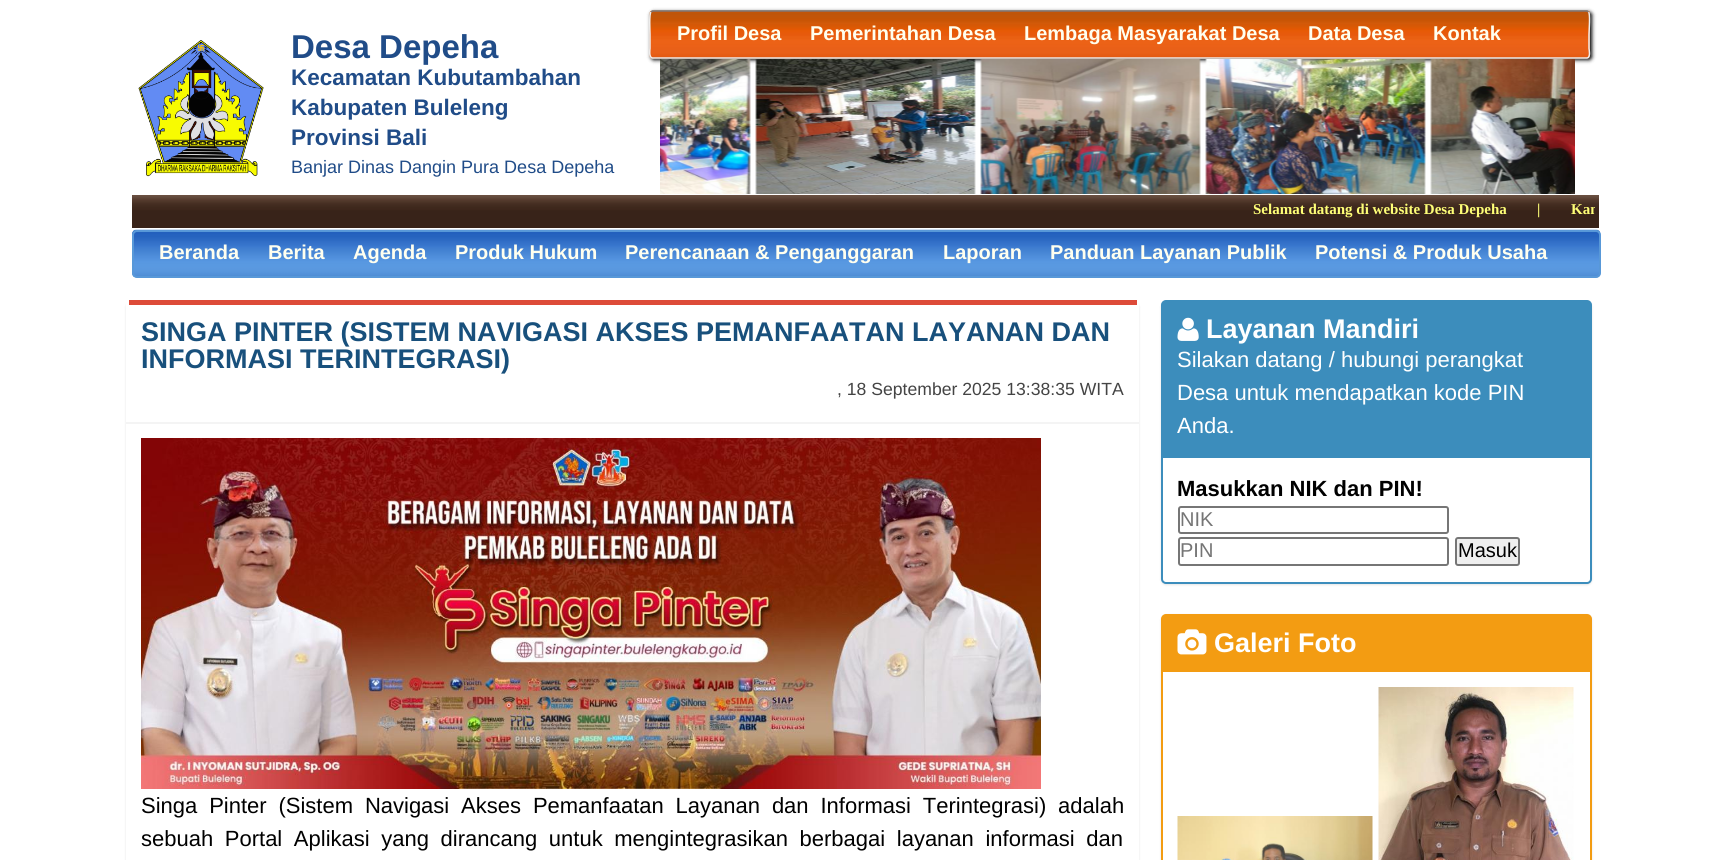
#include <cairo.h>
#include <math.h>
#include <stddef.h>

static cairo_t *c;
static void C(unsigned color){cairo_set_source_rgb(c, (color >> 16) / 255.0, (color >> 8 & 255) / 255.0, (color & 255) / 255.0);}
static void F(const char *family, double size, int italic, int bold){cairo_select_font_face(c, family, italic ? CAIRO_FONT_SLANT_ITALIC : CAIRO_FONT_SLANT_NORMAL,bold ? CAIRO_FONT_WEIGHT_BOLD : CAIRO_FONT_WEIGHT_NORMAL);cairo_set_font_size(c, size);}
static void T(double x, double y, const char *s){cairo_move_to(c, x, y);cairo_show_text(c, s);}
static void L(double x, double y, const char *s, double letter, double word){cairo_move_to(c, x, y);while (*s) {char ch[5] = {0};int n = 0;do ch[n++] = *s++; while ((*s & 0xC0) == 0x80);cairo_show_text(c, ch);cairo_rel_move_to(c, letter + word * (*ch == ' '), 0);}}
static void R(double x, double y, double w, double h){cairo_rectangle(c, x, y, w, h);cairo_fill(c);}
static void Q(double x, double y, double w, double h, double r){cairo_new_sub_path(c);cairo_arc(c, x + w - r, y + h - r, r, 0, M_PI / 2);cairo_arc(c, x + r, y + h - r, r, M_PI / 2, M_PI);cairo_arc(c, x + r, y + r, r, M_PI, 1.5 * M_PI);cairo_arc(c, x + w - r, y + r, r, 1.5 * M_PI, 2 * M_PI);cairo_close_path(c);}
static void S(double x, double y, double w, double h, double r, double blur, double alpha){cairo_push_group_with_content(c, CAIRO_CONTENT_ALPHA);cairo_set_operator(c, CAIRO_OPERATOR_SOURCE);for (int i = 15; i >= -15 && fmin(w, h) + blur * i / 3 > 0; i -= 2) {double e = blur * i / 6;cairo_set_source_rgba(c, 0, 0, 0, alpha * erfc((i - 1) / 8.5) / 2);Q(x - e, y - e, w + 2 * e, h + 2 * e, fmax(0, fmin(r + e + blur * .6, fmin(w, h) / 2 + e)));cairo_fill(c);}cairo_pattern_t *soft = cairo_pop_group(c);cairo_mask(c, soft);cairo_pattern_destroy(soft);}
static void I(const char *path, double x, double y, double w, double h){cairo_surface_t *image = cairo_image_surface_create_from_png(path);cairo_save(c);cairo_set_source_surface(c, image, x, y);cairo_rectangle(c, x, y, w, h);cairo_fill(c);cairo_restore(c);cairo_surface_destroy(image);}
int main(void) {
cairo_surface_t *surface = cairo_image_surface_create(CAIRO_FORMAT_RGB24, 1714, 860);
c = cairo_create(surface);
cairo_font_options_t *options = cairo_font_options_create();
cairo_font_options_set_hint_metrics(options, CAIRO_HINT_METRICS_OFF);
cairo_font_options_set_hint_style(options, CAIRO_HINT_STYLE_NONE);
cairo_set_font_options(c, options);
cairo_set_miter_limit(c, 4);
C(0xffffff);
cairo_paint(c);
I("1.png",138,40,126,137);
F("Liberation Sans",33,0,1);
C(0x204c88);
T(291,58,"Desa Depeha");
F("Liberation Sans",22.5,0,1);
T(291,85,"Kecamatan Kubutambahan");
T(291,115,"Kabupaten Buleleng");
T(291,145,"Provinsi Bali");
F("Liberation Sans",18,0,0);
T(291,173,"Banjar Dinas Dangin Pura Desa Depeha");
C(0x000000);
S(651,12,941,48,3,2,1);
I("2.png",649,10,941,49);
cairo_new_path(c);
cairo_move_to(c,651,12);
cairo_line_to(c,652.5,11);
cairo_line_to(c,1587,11);
cairo_line_to(c,1588.5,12);
C(0x777777);
cairo_set_line_width(c,1.5);
cairo_stroke(c);
cairo_new_path(c);
cairo_move_to(c,1588.5,12);
cairo_curve_to(c,1590.5,13.5,1589,31.5,1589,34.5);
cairo_line_to(c,1589,48.5);
cairo_curve_to(c,1589,49,1591,57.5,1587,58);
cairo_line_to(c,652.5,58);
cairo_curve_to(c,648.5,57.5,650,49,650,48.5);
cairo_line_to(c,650,34.5);
cairo_curve_to(c,650,31.5,649,13.5,651,12);
C(0xeeeeee);
cairo_stroke(c);
F("Liberation Sans",20,0,1);
C(0xffffef);
T(677,40,"Profil Desa");
T(810,40,"Pemerintahan Desa");
T(1024,40,"Lembaga Masyarakat Desa");
T(1308,40,"Data Desa");
T(1433,40,"Kontak");
I("3.png",660,59,91,135);
I("4.png",755,59,221,135);
I("5.png",980,59,221,135);
I("6.png",1205,59,221,135);
I("7.png",1430,59,145,135);
I("8.png",132,195,1467,33);
F("Liberation Serif",15,0,1);
C(0xfefe77);
T(1253,214,"Selamat datang di website Desa Depeha");
T(1537,214,"|");
cairo_save(c);
cairo_rectangle(c,140,201,1455,17);
cairo_clip(c);
T(1571,214,"Kan");
cairo_restore(c);
I("9.png",132,229,1469,49);
Q(133,231,1467,46,4);
C(0x5898d8);
cairo_set_line_width(c,2);
cairo_stroke(c);
F("Liberation Sans",20,0,1);
C(0xffffef);
T(159,259,"Beranda");
T(268,259,"Berita");
T(353,259,"Agenda");
T(455,259,"Produk Hukum");
T(625,259,"Perencanaan & Penganggaran");
T(943,259,"Laporan");
T(1050,259,"Panduan Layanan Publik");
T(1315,259,"Potensi & Produk Usaha");
C(0x000000);
S(126,302,1013,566,5,1,.1);
C(0xffffff);
Q(126,300,1013,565,5);
cairo_fill(c);
C(0xdd4b39);
R(129,300,1008,5);
C(0xf4f4f4);
R(126,422,1013,2);
F("Liberation Sans",27,0,1);
C(0x18507c);
T(141,341,"SINGA PINTER (SISTEM NAVIGASI AKSES PEMANFAATAN LAYANAN DAN");
T(141,368,"INFORMASI TERINTEGRASI)");
F("Liberation Sans",17.6,0,0);
C(0x444444);
T(837,395,", 18 September 2025 13:38:35 WITA");
I("10.png",141,438,900,351);
F("Liberation Sans",22,0,0);
C(0x000000);
L(141,813,"Singa Pinter (Sistem Navigasi Akses Pemanfaatan Layanan dan Informasi Terintegrasi) adalah",0,5.75);
L(141,846,"sebuah Portal Aplikasi yang dirancang untuk mengintegrasikan berbagai layanan informasi dan",0,5.5);
C(0x000000);
S(1161,302,431,283,5,1,.1);
C(0xffffff);
Q(1162,301,429,282,4);
cairo_fill_preserve(c);
C(0x3c8dbc);
cairo_stroke(c);
R(1163,302,427,156);
I("11.png",1177,317,22,24);
F("Liberation Sans",27,0,1);
C(0xffffff);
T(1206,338,"Layanan Mandiri");
F("Liberation Sans",22,0,0);
T(1177,367,"Silakan datang / hubungi perangkat");
T(1177,400,"Desa untuk mendapatkan kode PIN");
T(1177,433,"Anda.");
F("Liberation Sans",22,0,1);
C(0x000000);
T(1177,496,"Masukkan NIK dan PIN!");
Q(1179,507,269,26,2);
C(0x767676);
cairo_stroke(c);
F("Liberation Sans",20,0,0);
C(0x757575);
T(1180,526,"NIK");
Q(1179,538,269,27,2);
C(0x767676);
cairo_stroke(c);
C(0x757575);
T(1180,557,"PIN");
C(0xefefef);
Q(1456,538,63,27,2);
cairo_fill_preserve(c);
C(0x767676);
cairo_stroke(c);
C(0x000000);
T(1458,557,"Masuk");
C(0x000000);
S(1161,615,431,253,5,1,.1);
C(0xffffff);
Q(1162,615,429,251,4);
cairo_fill_preserve(c);
C(0xf39c12);
cairo_stroke(c);
R(1163,616,427,56);
I("12.png",1177,629,30,26);
F("Liberation Sans",27,0,1);
C(0xffffff);
T(1214,652,"Galeri Foto");
I("13.png",1177,816,196,44);
I("14.png",1378,687,196,173);
cairo_surface_write_to_png(surface, "o.png");
cairo_font_options_destroy(options);
cairo_destroy(c);
cairo_surface_destroy(surface);
return 0;
}
